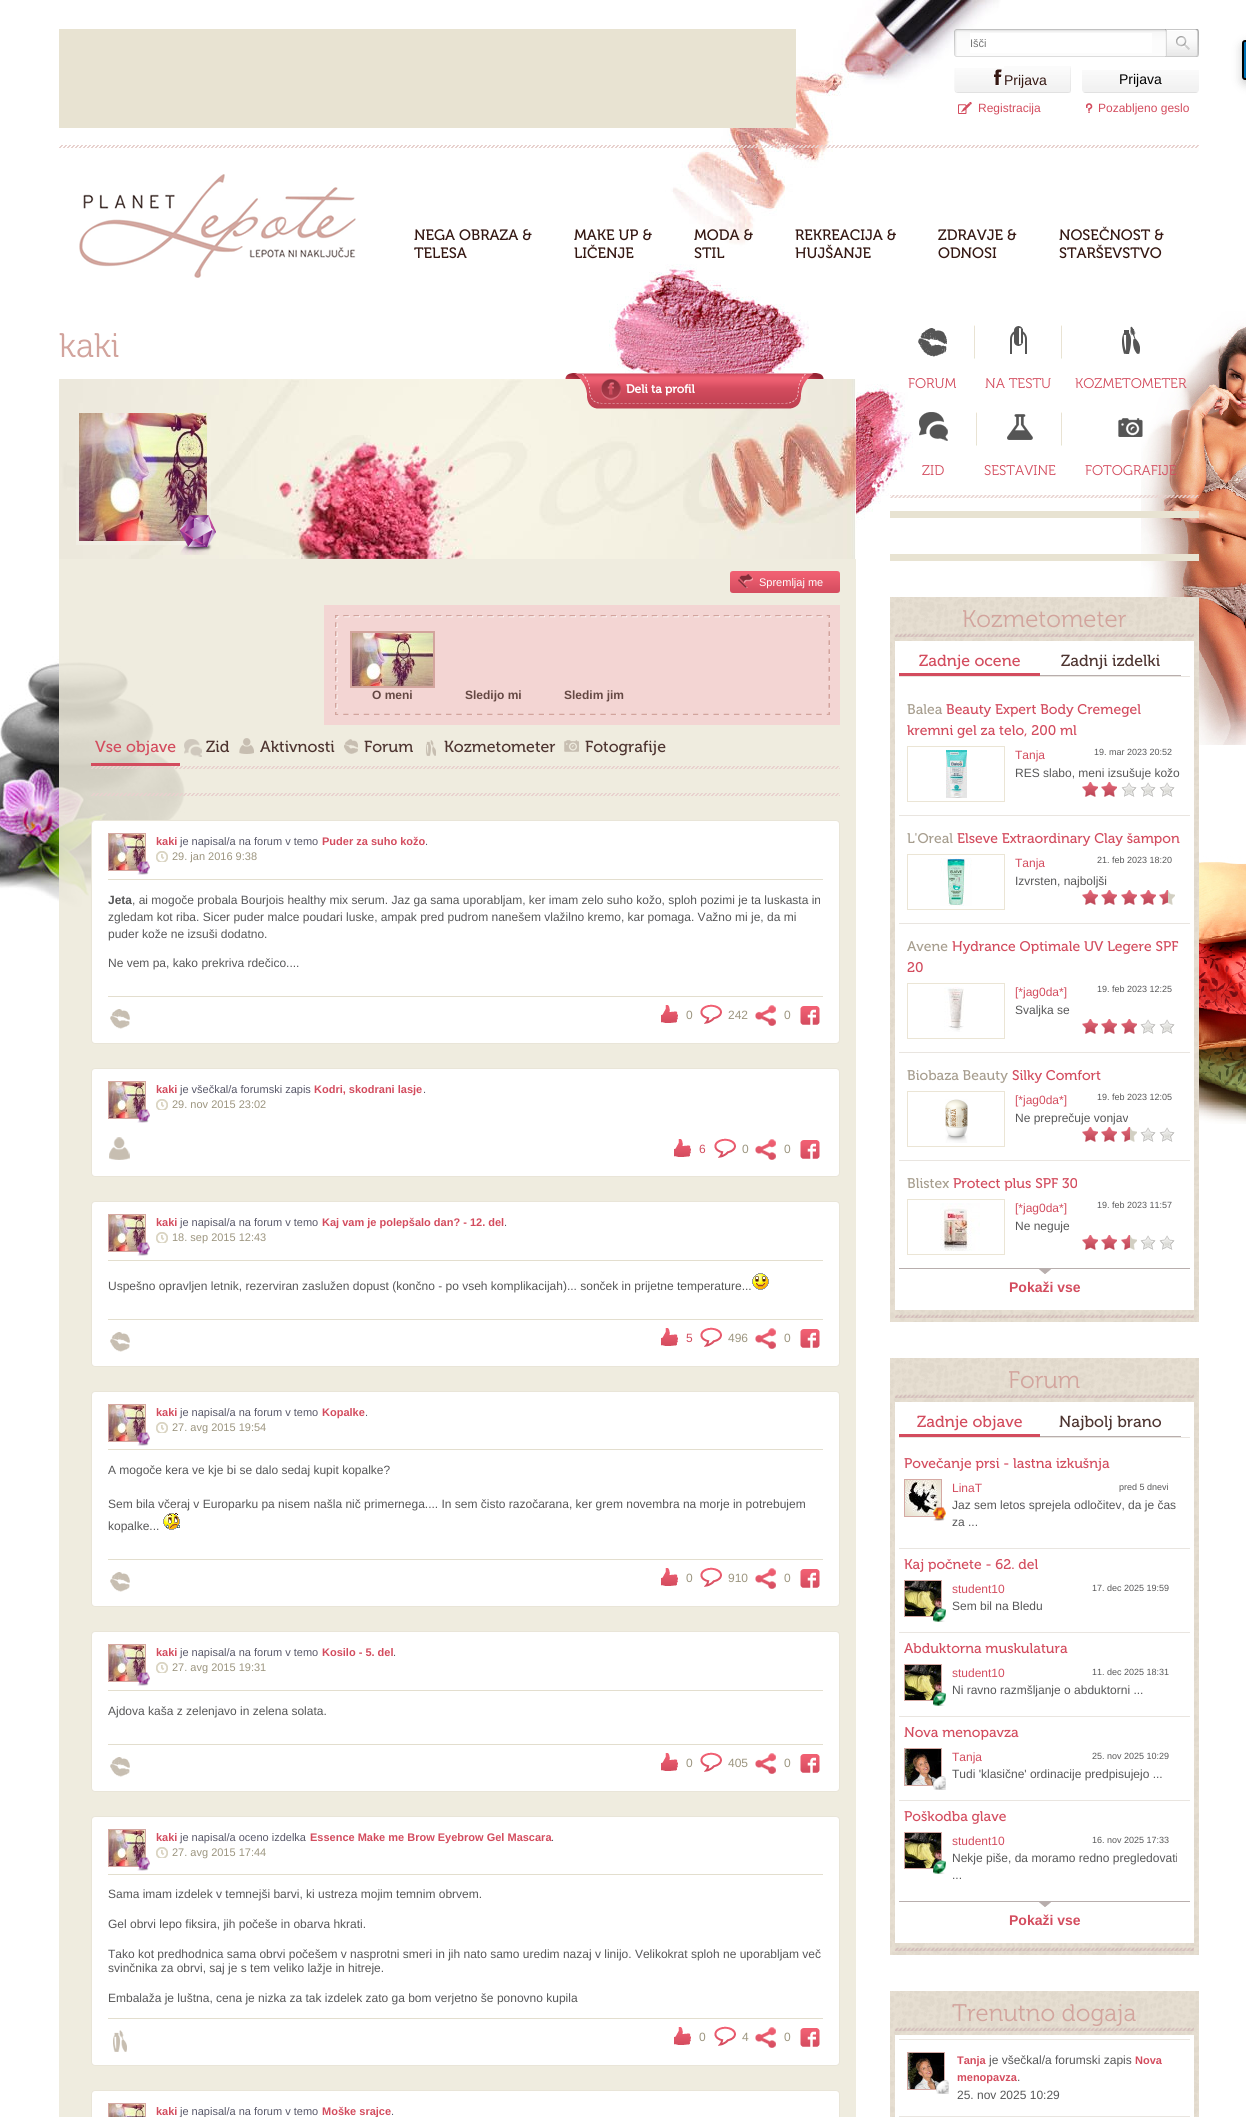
#include <cairo.h>
#include <math.h>
#include <stddef.h>

static cairo_t *c;
static void C(unsigned color){cairo_set_source_rgb(c, (color >> 16) / 255.0, (color >> 8 & 255) / 255.0, (color & 255) / 255.0);}
static void F(const char *family, double size, int italic, int bold){cairo_select_font_face(c, family, italic ? CAIRO_FONT_SLANT_ITALIC : CAIRO_FONT_SLANT_NORMAL,bold ? CAIRO_FONT_WEIGHT_BOLD : CAIRO_FONT_WEIGHT_NORMAL);cairo_set_font_size(c, size);}
static void T(double x, double y, const char *s){cairo_move_to(c, x, y);cairo_show_text(c, s);}
static void R(double x, double y, double w, double h){cairo_rectangle(c, x, y, w, h);cairo_fill(c);}
static void Q(double x, double y, double w, double h, double r){cairo_new_sub_path(c);cairo_arc(c, x + w - r, y + h - r, r, 0, M_PI / 2);cairo_arc(c, x + r, y + h - r, r, M_PI / 2, M_PI);cairo_arc(c, x + r, y + r, r, M_PI, 1.5 * M_PI);cairo_arc(c, x + w - r, y + r, r, 1.5 * M_PI, 2 * M_PI);cairo_close_path(c);}
static void S(double x, double y, double w, double h, double r, double blur, double alpha){cairo_push_group_with_content(c, CAIRO_CONTENT_ALPHA);cairo_set_operator(c, CAIRO_OPERATOR_SOURCE);for (int i = 15; i >= -15 && fmin(w, h) + blur * i / 3 > 0; i -= 2) {double e = blur * i / 6;cairo_set_source_rgba(c, 0, 0, 0, alpha * erfc((i - 1) / 8.5) / 2);Q(x - e, y - e, w + 2 * e, h + 2 * e, fmax(0, fmin(r + e + blur * .6, fmin(w, h) / 2 + e)));cairo_fill(c);}cairo_pattern_t *soft = cairo_pop_group(c);cairo_mask(c, soft);cairo_pattern_destroy(soft);}
static void I(const char *path, double x, double y, double w, double h){cairo_surface_t *image = cairo_image_surface_create_from_png(path);cairo_save(c);cairo_set_source_surface(c, image, x, y);cairo_rectangle(c, x, y, w, h);cairo_fill(c);cairo_restore(c);cairo_surface_destroy(image);}
int main(void) {
cairo_surface_t *surface = cairo_image_surface_create(CAIRO_FORMAT_RGB24, 1246, 2117);
c = cairo_create(surface);
cairo_font_options_t *options = cairo_font_options_create();
cairo_font_options_set_hint_metrics(options, CAIRO_HINT_METRICS_OFF);
cairo_font_options_set_hint_style(options, CAIRO_HINT_STYLE_NONE);
cairo_set_font_options(c, options);
cairo_set_miter_limit(c, 4);
C(0xffffff);
cairo_paint(c);
I("1.png",0,0,1246,1124);
I("2.png",59,145,1140,3);
C(0xe8e3d2);
R(59,29,737,99);
I("3.png",954,29,245,28);
C(0xffffff);
R(970,33,182,20);
F("Liberation Sans",11,0,0);
C(0x757575);
T(970,47,"Išči");
I("4.png",1176,36,14,14);
I("5.png",954,68,50,25);
I("6.png",1004,66,67,27);
F("Liberation Sans",14,0,0);
C(0x351813);
T(1004,85,"Prijava");
I("7.png",1082,70,117,23);
C(0x000000);
T(1119,84,"Prijava");
I("8.png",958,102,14,12);
F("Liberation Sans",12,0,0);
C(0xd34c5e);
T(978,112,"Registracija");
I("9.png",1086,103,7,10);
T(1098,112,"Pozabljeno geslo");
I("10.png",79,174,277,104);
F("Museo",15,0,0);
C(0x351813);
T(414,240,"NEGA OBRAZA &");
T(414,258,"TELESA");
T(574,240,"MAKE UP &");
T(574,258,"LIČENJE");
T(694,240,"MODA &");
T(694,258,"STIL");
T(795,240,"REKREACIJA &");
T(795,258,"HUJŠANJE");
T(938,240,"ZDRAVJE &");
T(938,258,"ODNOSI");
T(1059,240,"NOSEČNOST &");
T(1059,258,"STARŠEVSTVO");
F("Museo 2",34,0,0);
C(0xd2a49d);
T(59,357,"kaki");
I("11.png",59,379,797,180);
I("12.png",565,373,259,36);
I("13.png",601,379,20,21);
F("Museo",12,0,1);
C(0xffffff);
T(626,393,"Deli ta profil");
I("14.png",76,477,135,68);
I("15.png",79,413,128,128);
I("16.png",180,515,36,40);
cairo_set_source_rgba(c,0.929,0.914,0.855,0.87);
R(59,559,797,210);
I("17.png",730,571,110,22);
I("18.png",738,574,15,14);
F("Liberation Sans",11,0,0);
C(0xffffff);
T(759,586,"Spremljaj me");
C(0xf3d5d3);
R(324,605,516,120);
I("19.png",335,615,495,100);
cairo_rectangle(c,351,632,83,55);
C(0xd2a49d);
cairo_stroke(c);
I("20.png",352,633,81,53);
F("Liberation Sans",12,0,1);
C(0x644843);
T(372,699,"O meni");
T(465,699,"Sledijo mi");
T(564,699,"Sledim jim");
C(0xd34c5e);
R(91,763,89,3);
F("Museo",16,0,0);
T(95,752,"Vse objave");
I("21.png",184,739,18,18);
C(0x4e3531);
T(206,752,"Zid");
I("22.png",239,738,15,16);
T(260,752,"Aktivnosti");
I("23.png",344,739,14,15);
T(364,752,"Forum");
I("24.png",426,740,10,16);
T(444,752,"Kozmetometer");
I("25.png",564,740,15,12);
T(585,752,"Fotografije");
I("26.png",91,766,749,3);
cairo_set_source_rgba(c,0.929,0.914,0.855,0.87);
R(59,769,797,1348);
I("27.png",91,793,749,3);
C(0xffffff);
Q(91.5,820.5,748,223,3.5);
cairo_fill_preserve(c);
C(0xe9e5d8);
cairo_set_line_width(c,1);
cairo_stroke(c);
cairo_rectangle(c,108.5,833.5,37,37);
C(0xd5a9a3);
cairo_stroke(c);
I("28.png",109,834,36,36);
I("29.png",137,861,13,14);
F("Liberation Sans",11,0,1);
C(0xd34c5e);
T(156,845,"kaki");
F("Liberation Sans",11,0,0);
C(0x575768);
T(180,845,"je napisal/a na forum v temo");
F("Liberation Sans",11,0,1);
C(0xd34c5e);
T(322,845,"Puder za suho kožo");
F("Liberation Sans",11,0,0);
C(0x575768);
T(425,845,".");
C(0xe3dece);
R(108,879,715,1);
I("30.png",156,851,12,11);
C(0x9c957f);
T(172,860,"29. jan 2016 9:38");
C(0xe3dece);
R(108,996,715,1);
F("Liberation Sans",12,0,1);
C(0x575758);
T(108,904,"Jeta");
F("Liberation Sans",12,0,0);
T(132,904,", ai mogoče probala Bourjois healthy mix serum. Jaz ga sama uporabljam, ker imam zelo suho kožo, sploh pozimi je ta luskasta in");
T(108,921,"zgledam kot riba. Sicer puder malce poudari luske, ampak pred pudrom nanešem vlažilno kremo, kar pomaga. Važno mi je, da mi");
T(108,938,"puder kože ne izsuši dodatno.");
T(108,967,"Ne vem pa, kako prekriva rdečico....");
I("31.png",110,1009,20,20);
I("32.png",661,1005,17,18);
C(0x9c957f);
T(686,1019,"0");
I("33.png",700,1004,22,20);
T(728,1019,"242");
I("34.png",755,1005,21,21);
T(784,1019,"0");
I("35.png",800,1006,20,19);
C(0xffffff);
Q(91.5,1068.5,748,108,3.5);
cairo_fill_preserve(c);
C(0xe9e5d8);
cairo_stroke(c);
cairo_rectangle(c,108.5,1081.5,37,37);
C(0xd5a9a3);
cairo_stroke(c);
I("28.png",109,1082,36,36);
I("29.png",137,1109,13,14);
F("Liberation Sans",11,0,1);
C(0xd34c5e);
T(156,1093,"kaki");
F("Liberation Sans",11,0,0);
C(0x575768);
T(180,1093,"je všečkal/a forumski zapis");
F("Liberation Sans",11,0,1);
C(0xd34c5e);
T(314,1093,"Kodri, skodrani lasje");
F("Liberation Sans",11,0,0);
C(0x575768);
T(423,1093,".");
I("30.png",156,1099,12,11);
C(0x9c957f);
T(172,1108,"29. nov 2015 23:02");
I("36.png",109,1137,21,23);
I("32.png",674,1139,17,18);
F("Liberation Sans",12,0,0);
C(0xd34c5e);
T(699,1153,"6");
I("33.png",714,1138,22,20);
C(0x9c957f);
T(742,1153,"0");
I("34.png",755,1139,21,21);
T(784,1153,"0");
I("35.png",800,1140,20,19);
C(0xffffff);
Q(91.5,1201.5,748,165,3.5);
cairo_fill_preserve(c);
C(0xe9e5d8);
cairo_stroke(c);
cairo_rectangle(c,108.5,1214.5,37,37);
C(0xd5a9a3);
cairo_stroke(c);
I("28.png",109,1215,36,36);
I("29.png",137,1242,13,14);
F("Liberation Sans",11,0,1);
C(0xd34c5e);
T(156,1226,"kaki");
F("Liberation Sans",11,0,0);
C(0x575768);
T(180,1226,"je napisal/a na forum v temo");
F("Liberation Sans",11,0,1);
C(0xd34c5e);
T(322,1226,"Kaj vam je polepšalo dan? - 12. del");
F("Liberation Sans",11,0,0);
C(0x575768);
T(504,1226,".");
C(0xe3dece);
R(108,1260,715,1);
I("30.png",156,1232,12,11);
C(0x9c957f);
T(172,1241,"18. sep 2015 12:43");
C(0xe3dece);
R(108,1319,715,1);
F("Liberation Sans",12,0,0);
C(0x575758);
T(108,1290,"Uspešno opravljen letnik, rezerviran zaslužen dopust (končno - po vseh komplikacijah)... sonček in prijetne temperature...");
I("37.png",752,1273,17,17);
I("31.png",110,1332,20,20);
I("32.png",661,1328,17,18);
C(0xd34c5e);
T(686,1342,"5");
I("33.png",700,1327,22,20);
C(0x9c957f);
T(728,1342,"496");
I("34.png",755,1328,21,21);
T(784,1342,"0");
I("35.png",800,1329,20,19);
C(0xffffff);
Q(91.5,1391.5,748,215,3.5);
cairo_fill_preserve(c);
C(0xe9e5d8);
cairo_stroke(c);
cairo_rectangle(c,108.5,1404.5,37,37);
C(0xd5a9a3);
cairo_stroke(c);
I("28.png",109,1405,36,36);
I("29.png",137,1432,13,14);
F("Liberation Sans",11,0,1);
C(0xd34c5e);
T(156,1416,"kaki");
F("Liberation Sans",11,0,0);
C(0x575768);
T(180,1416,"je napisal/a na forum v temo");
F("Liberation Sans",11,0,1);
C(0xd34c5e);
T(322,1416,"Kopalke");
F("Liberation Sans",11,0,0);
C(0x575768);
T(365,1416,".");
C(0xe3dece);
R(108,1449,715,1);
I("30.png",156,1422,12,11);
C(0x9c957f);
T(172,1431,"27. avg 2015 19:54");
C(0xe3dece);
R(108,1559,715,1);
F("Liberation Sans",12,0,0);
C(0x575758);
T(108,1474,"A mogoče kera ve kje bi se dalo sedaj kupit kopalke?");
T(108,1508,"Sem bila včeraj v Europarku pa nisem našla nič primernega.... In sem čisto razočarana, ker grem novembra na morje in potrebujem");
T(108,1530,"kopalke...");
I("38.png",163,1513,17,17);
I("31.png",110,1572,20,20);
I("32.png",661,1568,17,18);
C(0x9c957f);
T(686,1582,"0");
I("33.png",700,1567,22,20);
T(728,1582,"910");
I("34.png",755,1568,21,21);
T(784,1582,"0");
I("35.png",800,1569,20,19);
C(0xffffff);
Q(91.5,1631.5,748,160,3.5);
cairo_fill_preserve(c);
C(0xe9e5d8);
cairo_stroke(c);
cairo_rectangle(c,108.5,1644.5,37,37);
C(0xd5a9a3);
cairo_stroke(c);
I("28.png",109,1645,36,36);
I("29.png",137,1672,13,14);
F("Liberation Sans",11,0,1);
C(0xd34c5e);
T(156,1656,"kaki");
F("Liberation Sans",11,0,0);
C(0x575768);
T(180,1656,"je napisal/a na forum v temo");
F("Liberation Sans",11,0,1);
C(0xd34c5e);
T(322,1656,"Kosilo - 5. del");
F("Liberation Sans",11,0,0);
C(0x575768);
T(393,1656,".");
C(0xe3dece);
R(108,1690,715,1);
I("30.png",156,1662,12,11);
C(0x9c957f);
T(172,1671,"27. avg 2015 19:31");
C(0xe3dece);
R(108,1744,715,1);
F("Liberation Sans",12,0,0);
C(0x575758);
T(108,1715,"Ajdova kaša z zelenjavo in zelena solata.");
I("31.png",110,1757,20,20);
I("32.png",661,1753,17,18);
C(0x9c957f);
T(686,1767,"0");
I("33.png",700,1752,22,20);
T(728,1767,"405");
I("34.png",755,1753,21,21);
T(784,1767,"0");
I("35.png",800,1754,20,19);
C(0xffffff);
Q(91.5,1816.5,748,249,3.5);
cairo_fill_preserve(c);
C(0xe9e5d8);
cairo_stroke(c);
cairo_rectangle(c,108.5,1829.5,37,37);
C(0xd5a9a3);
cairo_stroke(c);
I("28.png",109,1830,36,36);
I("29.png",137,1857,13,14);
F("Liberation Sans",11,0,1);
C(0xd34c5e);
T(156,1841,"kaki");
F("Liberation Sans",11,0,0);
C(0x575768);
T(180,1841,"je napisal/a oceno izdelka");
F("Liberation Sans",11,0,1);
C(0xd34c5e);
T(310,1841,"Essence Make me Brow Eyebrow Gel Mascara");
F("Liberation Sans",11,0,0);
C(0x575768);
T(551,1841,".");
C(0xe3dece);
R(108,1874,715,1);
I("30.png",156,1847,12,11);
C(0x9c957f);
T(172,1856,"27. avg 2015 17:44");
C(0xe3dece);
R(108,2018,715,1);
F("Liberation Sans",12,0,0);
C(0x575758);
T(108,1898,"Sama imam izdelek v temnejši barvi, ki ustreza mojim temnim obrvem.");
T(108,1928,"Gel obrvi lepo fiksira, jih počeše in obarva hkrati.");
T(108,1958,"Tako kot predhodnica sama obrvi počešem v nasprotni smeri in jih nato samo uredim nazaj v linijo. Velikokrat sploh ne uporabljam več");
T(108,1972,"svinčnika za obrvi, saj je s tem veliko lažje in hitreje.");
T(108,2002,"Embalaža je luštna, cena je nizka za tak izdelek zato ga bom verjetno še ponovno kupila");
I("39.png",113,2030,14,22);
I("32.png",674,2027,17,18);
C(0x9c957f);
T(699,2041,"0");
I("33.png",714,2026,22,20);
T(742,2041,"4");
I("34.png",755,2027,21,21);
T(784,2041,"0");
I("35.png",800,2028,20,19);
C(0xffffff);
Q(91.5,2090.5,748,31,3.5);
cairo_fill_preserve(c);
C(0xe9e5d8);
cairo_stroke(c);
cairo_rectangle(c,108.5,2103.5,37,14);
C(0xd5a9a3);
cairo_stroke(c);
I("40.png",109,2104,36,13);
F("Liberation Sans",11,0,1);
C(0xd34c5e);
T(156,2115,"kaki");
F("Liberation Sans",11,0,0);
C(0x575768);
T(180,2115,"je napisal/a na forum v temo");
F("Liberation Sans",11,0,1);
C(0xd34c5e);
T(322,2115,"Moške srajce");
F("Liberation Sans",11,0,0);
C(0x575768);
T(391,2115,".");
I("41.png",890,495,309,3);
I("42.png",974,325,1,34);
I("43.png",918,328,29,29);
F("Museo 2",14,0,0);
C(0xd34c5e);
T(908,388,"FORUM");
I("42.png",1061,325,1,34);
I("44.png",1010,326,17,28);
T(985,388,"NA TESTU");
I("45.png",1122,326,18,28);
T(1075,388,"KOZMETOMETER");
I("42.png",976,412,1,34);
I("46.png",919,412,29,29);
T(922,475,"ZID");
I("42.png",1061,412,1,34);
I("47.png",1007,414,26,26);
T(984,475,"SESTAVINE");
I("48.png",1118,418,25,19);
T(1085,475,"FOTOGRAFIJE");
C(0xe8e3d2);
R(890,511,309,7);
R(890,554,309,7);
I("49.png",890,597,309,725);
I("50.png",895,633,299,4);
F("Museo 2",24,0,0);
C(0xd2a49d);
T(962,627,"Kozmetometer");
I("51.png",895,1314,299,4);
C(0xffffff);
R(895,641,299,669);
C(0xd34c5e);
R(899,673,141,3);
F("Museo",16,0,0);
T(919,666,"Zadnje ocene");
C(0xb8aead);
R(1040,675,141,1);
C(0x4e3531);
T(1061,666,"Zadnji izdelki");
C(0xe9e5e0);
R(899,676,291,1);
F("Museo",14,0,0);
C(0xa79e8f);
T(907,714,"Balea");
C(0xd34c5e);
T(946,714,"Beauty Expert Body Cremegel");
T(907,735,"kremni gel za telo, 200 ml");
cairo_rectangle(c,907.5,746.5,97,55);
C(0xebe5d5);
cairo_stroke(c);
I("52.png",946,750,21,48);
F("Liberation Sans",12,0,0);
C(0xd34c5e);
T(1015,759,"Tanja");
F("Liberation Sans",9,0,0);
C(0x575758);
T(1094,755,"19. mar 2023 20:52");
F("Liberation Sans",12,0,0);
T(1015,777,"RES slabo, meni izsušuje kožo");
I("53.png",1082,782,16,15);
I("53.png",1101,782,16,15);
I("54.png",1121,782,16,15);
I("54.png",1140,782,16,15);
I("54.png",1159,782,16,15);
C(0xe9e5e0);
R(899,815,291,1);
F("Museo",14,0,0);
C(0xa79e8f);
T(907,843,"L'Oreal");
C(0xd34c5e);
T(957,843,"Elseve Extraordinary Clay šampon");
cairo_rectangle(c,907.5,854.5,97,55);
C(0xebe5d5);
cairo_stroke(c);
I("55.png",940,858,32,48);
F("Liberation Sans",12,0,0);
C(0xd34c5e);
T(1015,867,"Tanja");
F("Liberation Sans",9,0,0);
C(0x575758);
T(1097,863,"21. feb 2023 18:20");
F("Liberation Sans",12,0,0);
T(1015,885,"Izvrsten, najboljši");
I("53.png",1082,890,16,15);
I("53.png",1101,890,16,15);
I("53.png",1121,890,16,15);
I("53.png",1140,890,16,15);
I("56.png",1159,890,16,15);
C(0xe9e5e0);
R(899,923,291,1);
F("Museo",14,0,0);
C(0xa79e8f);
T(907,951,"Avene");
C(0xd34c5e);
T(952,951,"Hydrance Optimale UV Legere SPF");
T(907,972,"20");
cairo_rectangle(c,907.5,983.5,97,55);
C(0xebe5d5);
cairo_stroke(c);
I("57.png",944,987,20,45);
F("Liberation Sans",12,0,0);
C(0xd34c5e);
T(1015,996,"[*jag0da*]");
F("Liberation Sans",9,0,0);
C(0x575758);
T(1097,992,"19. feb 2023 12:25");
F("Liberation Sans",12,0,0);
T(1015,1014,"Svaljka se");
I("53.png",1082,1019,16,15);
I("53.png",1101,1019,16,15);
I("53.png",1121,1019,16,15);
I("54.png",1140,1019,16,15);
I("54.png",1159,1019,16,15);
C(0xe9e5e0);
R(899,1052,291,1);
F("Museo",14,0,0);
C(0xa79e8f);
T(907,1080,"Biobaza Beauty");
C(0xd34c5e);
T(1012,1080,"Silky Comfort");
cairo_rectangle(c,907.5,1091.5,97,55);
C(0xebe5d5);
cairo_stroke(c);
I("58.png",945,1099,23,44);
F("Liberation Sans",12,0,0);
C(0xd34c5e);
T(1015,1104,"[*jag0da*]");
F("Liberation Sans",9,0,0);
C(0x575758);
T(1097,1100,"19. feb 2023 12:05");
F("Liberation Sans",12,0,0);
T(1015,1122,"Ne preprečuje vonjav");
I("53.png",1082,1127,16,15);
I("53.png",1101,1127,16,15);
I("56.png",1121,1127,16,15);
I("54.png",1140,1127,16,15);
I("54.png",1159,1127,16,15);
C(0xe9e5e0);
R(899,1160,291,1);
F("Museo",14,0,0);
C(0xa79e8f);
T(907,1188,"Blistex");
C(0xd34c5e);
T(953,1188,"Protect plus SPF 30");
cairo_rectangle(c,907.5,1199.5,97,55);
C(0xebe5d5);
cairo_stroke(c);
I("59.png",940,1203,40,48);
F("Liberation Sans",12,0,0);
C(0xd34c5e);
T(1015,1212,"[*jag0da*]");
F("Liberation Sans",9,0,0);
C(0x575758);
T(1097,1208,"19. feb 2023 11:57");
F("Liberation Sans",12,0,0);
T(1015,1230,"Ne neguje");
I("53.png",1082,1235,16,15);
I("53.png",1101,1235,16,15);
I("56.png",1121,1235,16,15);
I("54.png",1140,1235,16,15);
I("54.png",1159,1235,16,15);
I("60.png",1039,1269,12,5);
C(0xb8aead);
R(899,1268,291,1);
F("Liberation Sans",14,0,1);
C(0xd34c5e);
T(1009,1292,"Pokaži vse");
I("61.png",890,1358,309,597);
I("50.png",895,1394,299,4);
F("Museo 2",24,0,0);
C(0xd2a49d);
T(1008,1388,"Forum");
I("62.png",895,1947,299,4);
C(0xffffff);
R(895,1402,299,541);
C(0xd34c5e);
R(899,1434,141,3);
F("Museo",16,0,0);
T(917,1427,"Zadnje objave");
C(0xb8aead);
R(1040,1436,141,1);
C(0x4e3531);
T(1059,1427,"Najbolj brano");
C(0xe9e5e0);
R(899,1437,291,1);
F("Museo",14,0,0);
C(0xd34c5e);
T(904,1468,"Povečanje prsi - lastna izkušnja");
cairo_rectangle(c,904.5,1479.5,37,37);
C(0xd5a9a3);
cairo_stroke(c);
I("63.png",905,1480,36,36);
I("64.png",933,1507,13,14);
F("Liberation Sans",12,0,0);
C(0xd34c5e);
T(952,1492,"LinaT");
F("Liberation Sans",9,0,0);
C(0x575758);
T(1119,1490,"pred 5 dnevi");
F("Liberation Sans",12,0,0);
T(952,1509,"Jaz sem letos sprejela odločitev, da je čas");
T(952,1526,"za ...");
C(0xe9e5e0);
R(899,1548,291,1);
F("Museo",14,0,0);
C(0xd34c5e);
T(904,1569,"Kaj počnete - 62. del");
cairo_rectangle(c,904.5,1580.5,37,36);
C(0xd5a9a3);
cairo_stroke(c);
I("65.png",905,1581,36,35);
I("66.png",933,1608,13,14);
F("Liberation Sans",12,0,0);
C(0xd34c5e);
T(952,1593,"student10");
F("Liberation Sans",9,0,0);
C(0x575758);
T(1092,1591,"17. dec 2025 19:59");
F("Liberation Sans",12,0,0);
T(952,1610,"Sem bil na Bledu");
C(0xe9e5e0);
R(899,1632,291,1);
F("Museo",14,0,0);
C(0xd34c5e);
T(904,1653,"Abduktorna muskulatura");
cairo_rectangle(c,904.5,1664.5,37,36);
C(0xd5a9a3);
cairo_stroke(c);
I("65.png",905,1665,36,35);
I("66.png",933,1692,13,14);
F("Liberation Sans",12,0,0);
C(0xd34c5e);
T(952,1677,"student10");
F("Liberation Sans",9,0,0);
C(0x575758);
T(1092,1675,"11. dec 2025 18:31");
F("Liberation Sans",12,0,0);
T(952,1694,"Ni ravno razmšljanje o abduktorni ...");
C(0xe9e5e0);
R(899,1716,291,1);
F("Museo",14,0,0);
C(0xd34c5e);
T(904,1737,"Nova menopavza");
cairo_rectangle(c,904.5,1748.5,37,37);
C(0xd5a9a3);
cairo_stroke(c);
I("67.png",905,1749,36,36);
I("68.png",933,1776,13,14);
F("Liberation Sans",12,0,0);
C(0xd34c5e);
T(952,1761,"Tanja");
F("Liberation Sans",9,0,0);
C(0x575758);
T(1092,1759,"25. nov 2025 10:29");
F("Liberation Sans",12,0,0);
T(952,1778,"Tudi 'klasične' ordinacije predpisujejo ...");
C(0xe9e5e0);
R(899,1800,291,1);
F("Museo",14,0,0);
C(0xd34c5e);
T(904,1821,"Poškodba glave");
cairo_rectangle(c,904.5,1832.5,37,36);
C(0xd5a9a3);
cairo_stroke(c);
I("65.png",905,1833,36,35);
I("66.png",933,1860,13,14);
F("Liberation Sans",12,0,0);
C(0xd34c5e);
T(952,1845,"student10");
F("Liberation Sans",9,0,0);
C(0x575758);
T(1092,1843,"16. nov 2025 17:33");
F("Liberation Sans",12,0,0);
T(952,1862,"Nekje piše, da moramo redno pregledovati");
T(952,1879,"...");
I("60.png",1039,1902,12,5);
C(0xb8aead);
R(899,1901,291,1);
F("Liberation Sans",14,0,1);
C(0xd34c5e);
T(1009,1925,"Pokaži vse");
I("69.png",890,1991,309,126);
I("50.png",895,2027,299,4);
F("Museo 2",24,0,0);
C(0xd2a49d);
T(952,2021,"Trenutno dogaja");
C(0xffffff);
R(895,2035,299,82);
C(0xe9e5e0);
R(899,2039,291,1);
cairo_rectangle(c,907.5,2052.5,37,37);
C(0xd5a9a3);
cairo_stroke(c);
I("67.png",908,2053,36,36);
I("68.png",936,2080,13,14);
F("Liberation Sans",11,0,1);
C(0xd34c5e);
T(957,2064,"Tanja");
F("Liberation Sans",12,0,0);
C(0x575758);
T(989,2064,"je všečkal/a forumski zapis");
F("Liberation Sans",11,0,1);
C(0xd34c5e);
T(1135,2064,"Nova");
T(957,2081,"menopavza");
F("Liberation Sans",12,0,0);
C(0x575758);
T(1017,2081,".");
T(957,2099,"25. nov 2025 10:29");
C(0xe9e5e0);
R(899,2116,291,1);
C(0x000000);
S(1242,44,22,40,3,5,.2);
C(0x0073b7);
cairo_new_path(c);
cairo_move_to(c,1245,41);
cairo_line_to(c,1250,41);
cairo_line_to(c,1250,79);
cairo_line_to(c,1245,79);
cairo_curve_to(c,1244,79,1243,78,1243,77);
cairo_line_to(c,1243,43);
cairo_curve_to(c,1243,42,1244,41,1245,41);
cairo_close_path(c);
cairo_fill_preserve(c);
C(0x000000);
cairo_set_line_width(c,2);
cairo_stroke(c);
cairo_surface_write_to_png(surface, "o.png");
cairo_font_options_destroy(options);
cairo_destroy(c);
cairo_surface_destroy(surface);
return 0;
}
